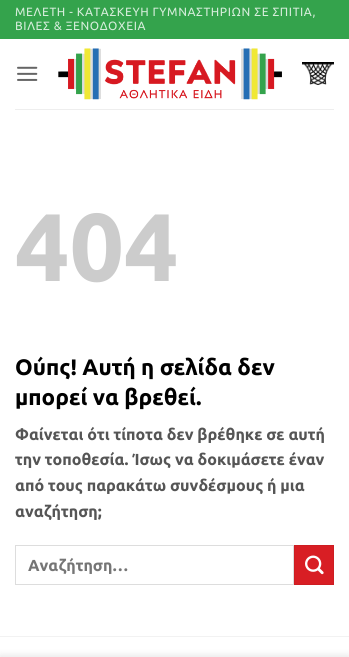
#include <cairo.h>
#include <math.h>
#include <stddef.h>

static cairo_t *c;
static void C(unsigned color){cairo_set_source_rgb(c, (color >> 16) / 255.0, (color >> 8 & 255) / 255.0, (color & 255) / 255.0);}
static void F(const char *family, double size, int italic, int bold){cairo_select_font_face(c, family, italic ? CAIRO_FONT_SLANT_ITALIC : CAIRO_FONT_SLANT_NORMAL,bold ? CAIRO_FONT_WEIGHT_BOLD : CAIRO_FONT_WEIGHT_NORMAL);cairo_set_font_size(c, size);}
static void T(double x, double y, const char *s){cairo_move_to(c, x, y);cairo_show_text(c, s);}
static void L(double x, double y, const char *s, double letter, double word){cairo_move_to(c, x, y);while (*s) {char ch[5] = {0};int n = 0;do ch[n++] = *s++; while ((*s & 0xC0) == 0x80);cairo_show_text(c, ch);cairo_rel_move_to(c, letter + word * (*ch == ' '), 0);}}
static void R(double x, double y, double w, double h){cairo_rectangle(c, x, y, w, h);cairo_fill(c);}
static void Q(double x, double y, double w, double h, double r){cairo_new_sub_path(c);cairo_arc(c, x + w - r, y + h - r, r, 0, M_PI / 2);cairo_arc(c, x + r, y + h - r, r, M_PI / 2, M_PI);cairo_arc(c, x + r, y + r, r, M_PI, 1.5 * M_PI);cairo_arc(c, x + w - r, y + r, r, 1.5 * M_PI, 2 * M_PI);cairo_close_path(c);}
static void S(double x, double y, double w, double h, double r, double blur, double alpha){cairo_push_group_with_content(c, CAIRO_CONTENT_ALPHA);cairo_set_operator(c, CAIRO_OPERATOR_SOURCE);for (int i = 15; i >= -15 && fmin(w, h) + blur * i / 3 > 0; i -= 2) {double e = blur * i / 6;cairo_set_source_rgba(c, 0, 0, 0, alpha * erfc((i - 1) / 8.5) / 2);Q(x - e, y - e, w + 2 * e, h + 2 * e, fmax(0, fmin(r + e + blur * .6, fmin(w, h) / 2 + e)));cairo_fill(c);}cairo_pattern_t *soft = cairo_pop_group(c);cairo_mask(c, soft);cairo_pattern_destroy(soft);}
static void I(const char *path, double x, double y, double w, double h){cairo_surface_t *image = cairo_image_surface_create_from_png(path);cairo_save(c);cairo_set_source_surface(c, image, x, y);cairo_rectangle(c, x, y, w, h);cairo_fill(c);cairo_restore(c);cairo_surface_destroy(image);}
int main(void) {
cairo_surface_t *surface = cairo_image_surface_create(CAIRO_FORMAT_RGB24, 349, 657);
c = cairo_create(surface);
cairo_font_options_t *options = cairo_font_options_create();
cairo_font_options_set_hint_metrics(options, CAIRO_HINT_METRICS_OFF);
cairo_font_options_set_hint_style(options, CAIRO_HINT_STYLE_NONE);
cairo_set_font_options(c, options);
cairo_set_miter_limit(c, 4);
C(0xffffff);
cairo_paint(c);
C(0x34a34c);
R(0,0,349,39);
F("Ubuntu",12,0,0);
C(0xd6eddb);
L(15,16,"ΜΕΛΕΤΗ - ΚΑΤΑΣΚΕΥΗ ΓΥΜΝΑΣΤΗΡΙΩΝ ΣΕ ΣΠΙΤΙΑ,",.6,0);
L(15,30,"ΒΙΛΕΣ & ΞΕΝΟΔΟΧΕΙΑ",.6,0);
I("1.png",17,66,21,15);
I("2.png",58,48,224,52);
I("3.png",302,62,32,23);
C(0xeeeeee);
R(15,109,319,1);
F("Ubuntu",96,0,1);
C(0xcccccc);
T(15,281,"404");
F("Ubuntu",22.4,0,1);
C(0x000000);
T(15,375,"Ούπς! Αυτή η σελίδα δεν");
T(15,405,"μπορεί να βρεθεί.");
F("Ubuntu",16,0,1);
C(0x555555);
T(15,440,"Φαίνεται ότι τίποτα δεν βρέθηκε σε αυτή");
T(15,465,"την τοποθεσία. Ίσως να δοκιμάσετε έναν");
T(15,491,"από τους παρακάτω συνδέσμους ή μια");
T(15,517,"αναζήτηση;");
cairo_rectangle(c,15.5,545.5,278,39);
C(0xdddddd);
cairo_set_line_width(c,1);
cairo_stroke(c);
C(0x757575);
T(28,571,"Αναζήτηση…");
C(0xd81e24);
cairo_rectangle(c,294.5,545.5,39,39);
cairo_fill_preserve(c);
C(0xcd1d22);
cairo_stroke(c);
I("4.png",305,555,19,20);
C(0xf2f2f2);
R(0,636,349,1);
C(0x000000);
S(0,657,349,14,0,4.5,.14);
cairo_surface_write_to_png(surface, "o.png");
cairo_font_options_destroy(options);
cairo_destroy(c);
cairo_surface_destroy(surface);
return 0;
}
